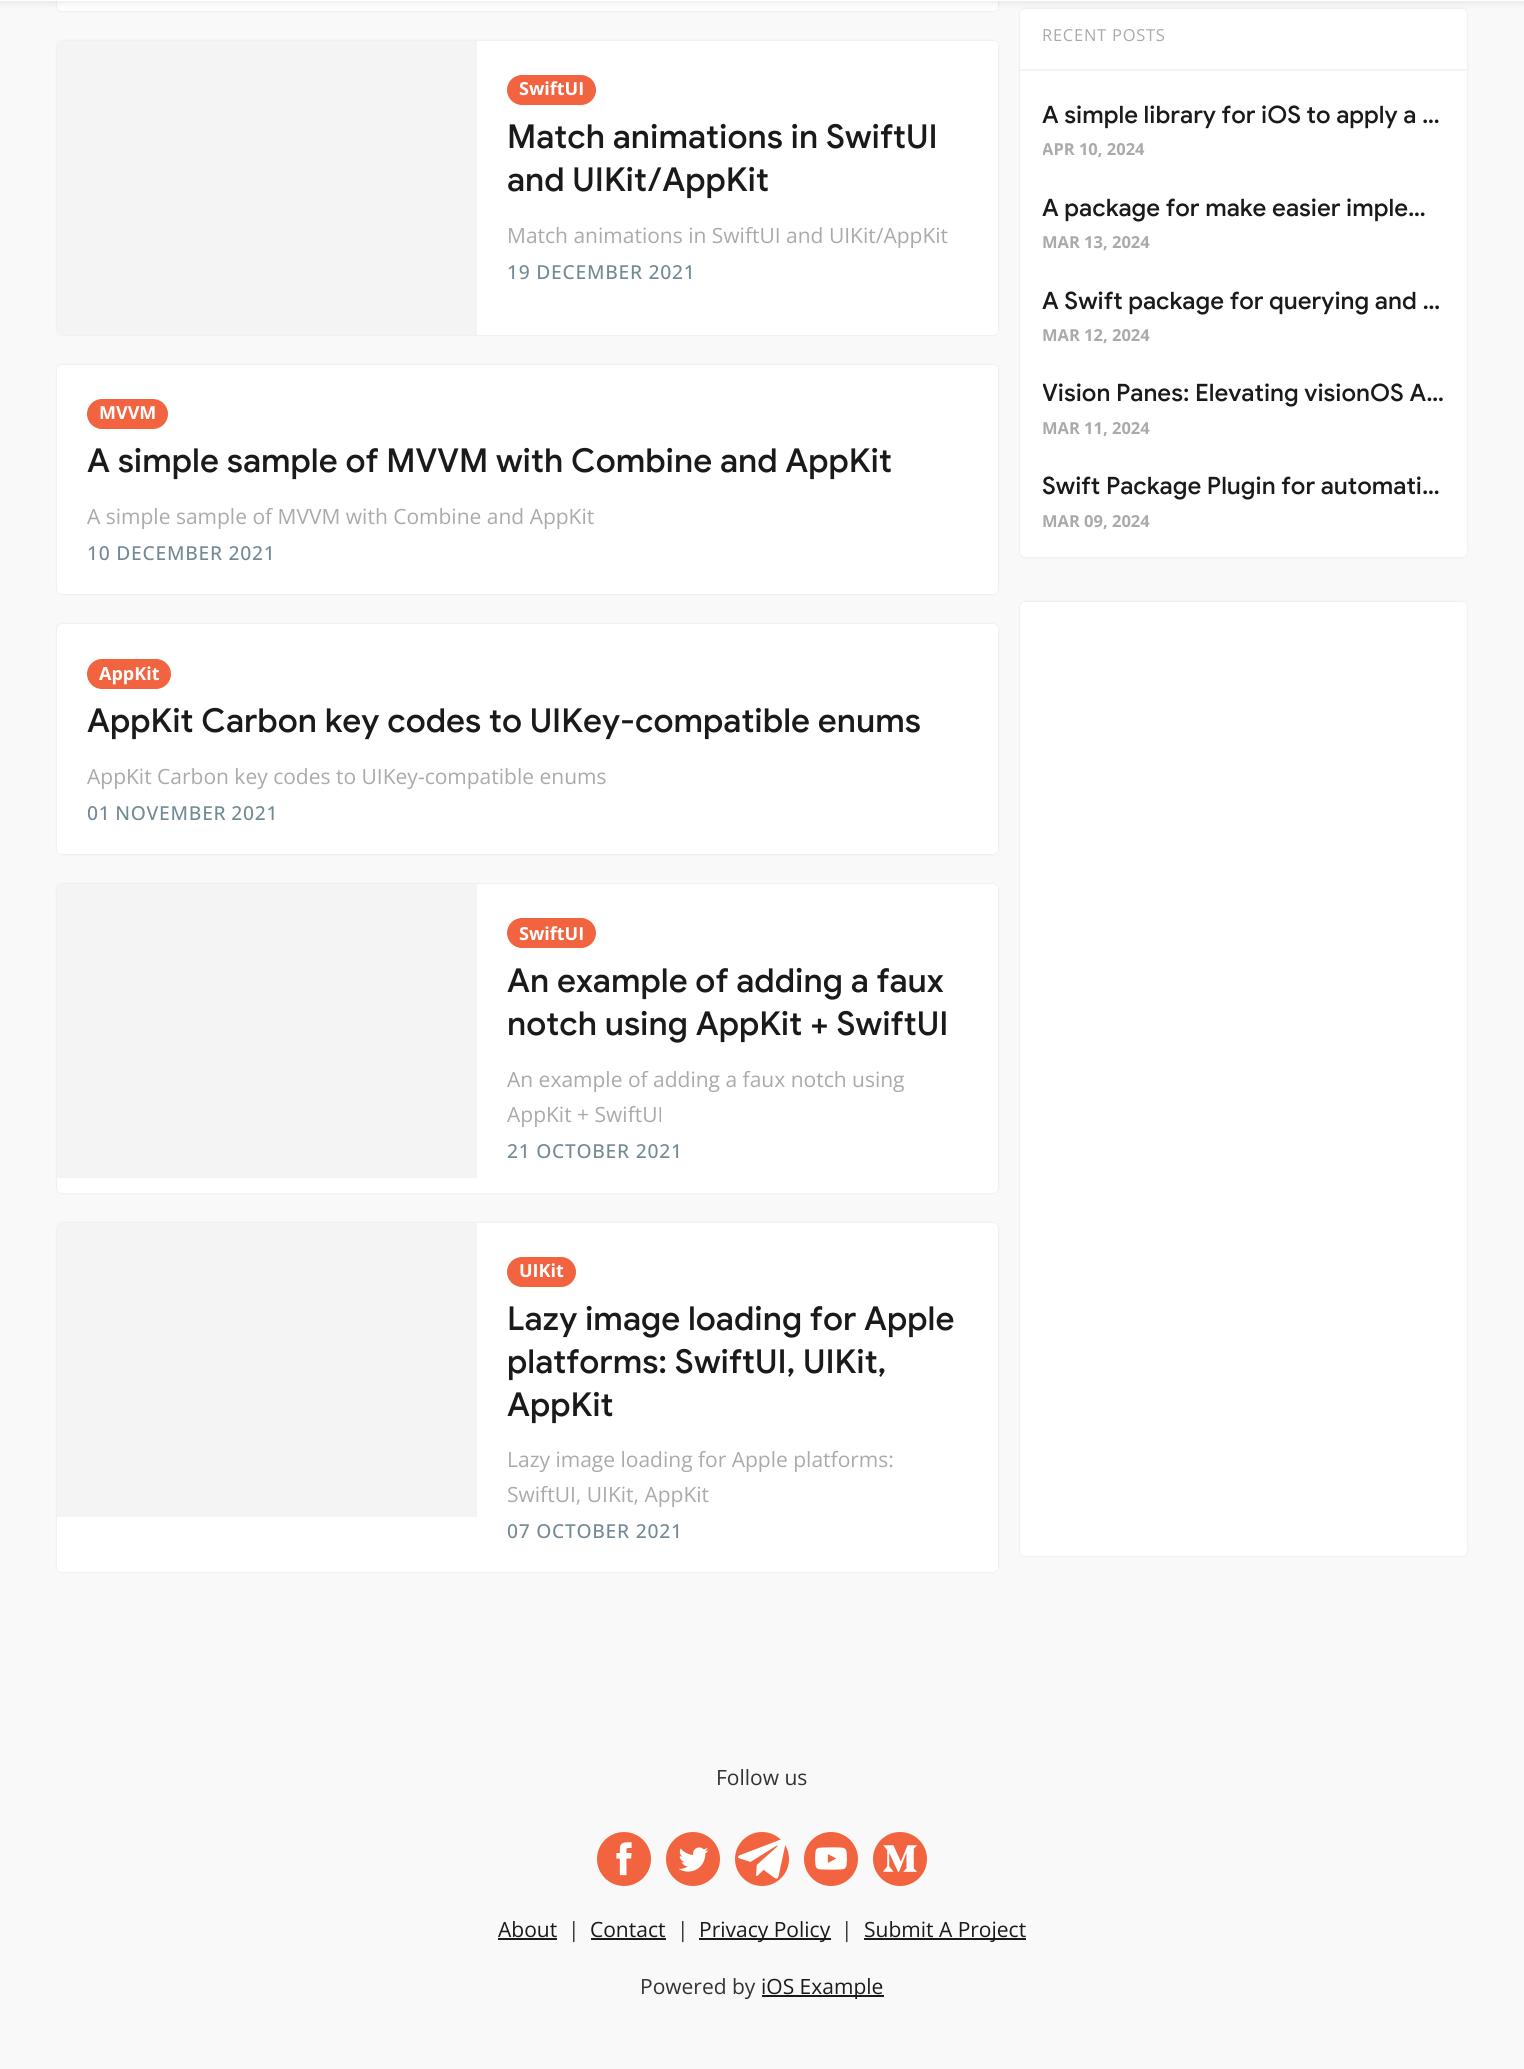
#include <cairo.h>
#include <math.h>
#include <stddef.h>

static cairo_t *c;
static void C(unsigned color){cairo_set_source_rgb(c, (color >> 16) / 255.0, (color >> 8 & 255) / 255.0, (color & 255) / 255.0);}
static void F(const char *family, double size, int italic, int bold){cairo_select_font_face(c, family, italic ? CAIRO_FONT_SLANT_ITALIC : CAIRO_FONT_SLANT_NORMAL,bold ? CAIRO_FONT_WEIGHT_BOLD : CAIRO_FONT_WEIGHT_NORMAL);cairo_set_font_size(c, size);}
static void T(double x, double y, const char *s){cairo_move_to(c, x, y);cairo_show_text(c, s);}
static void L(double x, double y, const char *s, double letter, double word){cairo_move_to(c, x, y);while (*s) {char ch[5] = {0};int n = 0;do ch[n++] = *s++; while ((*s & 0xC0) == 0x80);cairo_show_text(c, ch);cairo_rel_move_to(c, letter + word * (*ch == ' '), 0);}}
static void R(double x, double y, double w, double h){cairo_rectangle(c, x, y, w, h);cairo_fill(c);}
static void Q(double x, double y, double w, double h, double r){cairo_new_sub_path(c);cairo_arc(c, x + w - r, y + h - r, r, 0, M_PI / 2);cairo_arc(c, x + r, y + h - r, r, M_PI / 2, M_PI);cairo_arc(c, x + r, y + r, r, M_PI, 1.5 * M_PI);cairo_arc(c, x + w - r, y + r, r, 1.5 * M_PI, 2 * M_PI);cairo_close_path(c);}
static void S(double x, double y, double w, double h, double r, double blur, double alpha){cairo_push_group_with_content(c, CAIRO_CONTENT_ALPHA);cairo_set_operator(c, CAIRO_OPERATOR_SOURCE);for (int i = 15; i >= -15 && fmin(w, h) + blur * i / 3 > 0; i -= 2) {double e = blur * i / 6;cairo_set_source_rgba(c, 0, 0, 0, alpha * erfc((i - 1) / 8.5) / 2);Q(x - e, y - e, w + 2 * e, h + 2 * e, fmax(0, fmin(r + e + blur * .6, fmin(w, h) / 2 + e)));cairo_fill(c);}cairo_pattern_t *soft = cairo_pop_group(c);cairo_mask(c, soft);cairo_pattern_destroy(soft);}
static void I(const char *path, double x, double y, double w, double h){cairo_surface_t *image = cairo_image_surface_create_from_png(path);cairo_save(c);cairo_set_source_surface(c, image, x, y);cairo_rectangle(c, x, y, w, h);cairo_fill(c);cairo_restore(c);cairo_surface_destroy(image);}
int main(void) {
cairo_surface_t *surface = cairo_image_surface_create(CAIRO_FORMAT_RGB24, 1524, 2069);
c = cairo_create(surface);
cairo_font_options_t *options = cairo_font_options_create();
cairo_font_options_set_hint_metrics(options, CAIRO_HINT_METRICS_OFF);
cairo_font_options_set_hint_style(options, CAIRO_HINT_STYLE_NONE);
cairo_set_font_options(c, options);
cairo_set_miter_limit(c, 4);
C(0xf9f9f9);
cairo_paint(c);
C(0x000000);
S(57,-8,941,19,5,1,.1);
C(0xffffff);
Q(57,-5,941,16,5);
cairo_fill(c);
C(0x000000);
S(1020,9,447,548,5,1,.1);
C(0xffffff);
Q(1020,9,447,548,5);
cairo_fill(c);
C(0x000000);
S(0,-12,1524,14,0,4,.1);
C(0xffffff);
R(0,0,1524,1);
C(0x000000);
S(57,41,941,294,5,1,.1);
C(0xffffff);
Q(57,41,941,294,5);
cairo_fill(c);
cairo_new_path(c);
cairo_move_to(c,62,41);
cairo_line_to(c,993,41);
cairo_curve_to(c,996,41,998,43,998,46);
cairo_line_to(c,998,314);
cairo_line_to(c,57,314);
cairo_line_to(c,57,46);
cairo_curve_to(c,57,43,59,41,62,41);
cairo_close_path(c);
cairo_fill(c);
C(0xf4f4f4);
cairo_new_path(c);
cairo_move_to(c,62,41);
cairo_line_to(c,477,41);
cairo_line_to(c,477,335);
cairo_line_to(c,62,335);
cairo_curve_to(c,59,335,57,333,57,330);
cairo_line_to(c,57,46);
cairo_curve_to(c,57,43,59,41,62,41);
cairo_close_path(c);
cairo_fill(c);
C(0xf2643f);
Q(507,75,89,30,15);
cairo_fill(c);
F("Open Sans",18,0,1);
C(0xffffff);
T(519,95,"SwiftUI");
F("Google Sans Medium",33,0,0);
C(0x1a1a1a);
T(507,148,"Match animations in SwiftUI");
T(507,191,"and UIKit/AppKit");
F("Open Sans",21,0,0);
C(0xaaaaaa);
T(507,243,"Match animations in SwiftUI and UIKit/AppKit");
F("Open Sans Medium",19.25,0,0);
C(0x738a94);
L(507,279,"19 DECEMBER 2021",.75,0);
C(0x000000);
S(57,365,941,229,5,1,.1);
C(0xffffff);
Q(57,365,941,229,5);
cairo_fill(c);
C(0xf2643f);
Q(87,399,81,30,15);
cairo_fill(c);
F("Open Sans",18,0,1);
C(0xffffff);
T(99,419,"MVVM");
F("Google Sans Medium",33,0,0);
C(0x1a1a1a);
T(87,472,"A simple sample of MVVM with Combine and AppKit");
F("Open Sans",21,0,0);
C(0xaaaaaa);
T(87,524,"A simple sample of MVVM with Combine and AppKit");
F("Open Sans Medium",19.25,0,0);
C(0x738a94);
L(87,560,"10 DECEMBER 2021",.75,0);
C(0x000000);
S(57,624,941,230,5,1,.1);
C(0xffffff);
Q(57,624,941,230,5);
cairo_fill(c);
C(0xf2643f);
Q(87,659,84,30,15);
cairo_fill(c);
F("Open Sans",18,0,1);
C(0xffffff);
T(99,680,"AppKit");
F("Google Sans Medium",33,0,0);
C(0x1a1a1a);
T(87,732,"AppKit Carbon key codes to UIKey-compatible enums");
F("Open Sans",21,0,0);
C(0xaaaaaa);
T(87,784,"AppKit Carbon key codes to UIKey-compatible enums");
F("Open Sans Medium",19.25,0,0);
C(0x738a94);
L(87,820,"01 NOVEMBER 2021",.75,-1);
C(0x000000);
S(57,884,941,309,5,1,.1);
C(0xffffff);
Q(57,884,941,309,5);
cairo_fill(c);
C(0xf4f4f4);
cairo_new_path(c);
cairo_move_to(c,62,884);
cairo_line_to(c,477,884);
cairo_line_to(c,477,1178);
cairo_line_to(c,57,1178);
cairo_line_to(c,57,889);
cairo_curve_to(c,57,886,59,884,62,884);
cairo_close_path(c);
cairo_fill(c);
C(0xf2643f);
Q(507,918,89,30,15);
cairo_fill(c);
F("Open Sans",18,0,1);
C(0xffffff);
T(519,940,"SwiftUI");
F("Google Sans Medium",33,0,0);
C(0x1a1a1a);
T(507,992,"An example of adding a faux");
T(507,1035,"notch using AppKit + SwiftUI");
F("Open Sans",21,0,0);
C(0xaaaaaa);
T(507,1087,"An example of adding a faux notch using");
T(507,1122,"AppKit + SwiftUI");
F("Open Sans Medium",19.25,0,0);
C(0x738a94);
L(507,1158,"21 OCTOBER 2021",.75,0);
C(0x000000);
S(57,1223,941,349,5,1,.1);
C(0xffffff);
Q(57,1223,941,349,5);
cairo_fill(c);
C(0xf4f4f4);
cairo_new_path(c);
cairo_move_to(c,62,1223);
cairo_line_to(c,477,1223);
cairo_line_to(c,477,1517);
cairo_line_to(c,57,1517);
cairo_line_to(c,57,1228);
cairo_curve_to(c,57,1225,59,1223,62,1223);
cairo_close_path(c);
cairo_fill(c);
C(0xf2643f);
Q(507,1257,69,30,15);
cairo_fill(c);
F("Open Sans",18,0,1);
C(0xffffff);
T(519,1277,"UIKit");
F("Google Sans Medium",33,0,0);
C(0x1a1a1a);
T(507,1330,"Lazy image loading for Apple");
T(507,1373,"platforms: SwiftUI, UIKit,");
T(507,1416,"AppKit");
F("Open Sans",21,0,0);
C(0xaaaaaa);
T(507,1467,"Lazy image loading for Apple platforms:");
T(507,1502,"SwiftUI, UIKit, AppKit");
F("Open Sans Medium",19.25,0,0);
C(0x738a94);
L(507,1538,"07 OCTOBER 2021",.75,0);
C(0xf4f4f4);
R(1020,69,447,2);
F("Open Sans",16.5,0,0);
C(0xaaaaaa);
L(1042,41,"RECENT POSTS",.75,0);
F("Google Sans Medium",24,0,0);
C(0x1a1a1a);
T(1042,123,"A simple library for iOS to apply a …");
cairo_save(c);
cairo_rectangle(c,1043,101,402,63);
cairo_clip(c);
F("Open Sans",16.5,0,1);
C(0xaaaaaa);
T(1042,155,"APR 10, 2024");
cairo_restore(c);
T(1042,216,"A package for make easier imple…");
F("Open Sans",16.5,0,1);
C(0xaaaaaa);
T(1042,248,"MAR 13, 2024");
F("Google Sans Medium",24,0,0);
C(0x1a1a1a);
T(1042,309,"A Swift package for querying and …");
F("Open Sans",16.5,0,1);
C(0xaaaaaa);
T(1042,341,"MAR 12, 2024");
cairo_save(c);
cairo_rectangle(c,1043,378,402,32);
cairo_clip(c);
F("Google Sans Medium",24,0,0);
C(0x1a1a1a);
T(1042,401,"Vision Panes: Elevating visionOS A…");
cairo_restore(c);
T(1042,434,"MAR 11, 2024");
F("Google Sans Medium",24,0,0);
C(0x1a1a1a);
T(1042,494,"Swift Package Plugin for automati…");
F("Open Sans",16.5,0,1);
C(0xaaaaaa);
T(1042,527,"MAR 09, 2024");
C(0x000000);
S(1020,602,447,954,5,1,.1);
C(0xffffff);
Q(1020,602,447,954,5);
cairo_fill(c);
F("Open Sans",21,0,0);
C(0x333333);
T(716,1785,"Follow us");
C(0xf2643f);
cairo_new_path(c);
cairo_arc(c,624,1859,27,0,2 * M_PI);
cairo_fill(c);
I("1.png",616,1842,16,34);
cairo_arc(c,693,1859,27,0,2 * M_PI);
cairo_fill(c);
I("2.png",678,1847,31,25);
cairo_arc(c,762,1859,27,0,2 * M_PI);
cairo_fill(c);
I("3.png",738,1839,48,40);
cairo_arc(c,831,1859,27,0,2 * M_PI);
cairo_fill(c);
I("4.png",815,1847,32,23);
cairo_arc(c,900,1859,27,0,2 * M_PI);
cairo_fill(c);
I("5.png",883,1845,34,27);
C(0x1a1a1a);
T(498,1937,"About");
R(498,1938,59,2);
C(0x333333);
T(568,1937,"|");
C(0x1a1a1a);
T(590,1937,"Contact");
R(591,1938,75,2);
C(0x333333);
T(677,1937,"|");
C(0x1a1a1a);
R(699,1938,132,2);
T(699,1937,"Privacy Policy");
C(0x333333);
T(841,1937,"|");
C(0x1a1a1a);
R(864,1938,162,2);
T(864,1937,"Submit A Project");
C(0x333333);
T(640,1994,"Powered by");
C(0x1a1a1a);
R(762,1995,122,2);
T(761,1994,"iOS Example");
cairo_surface_write_to_png(surface, "o.png");
cairo_font_options_destroy(options);
cairo_destroy(c);
cairo_surface_destroy(surface);
return 0;
}
